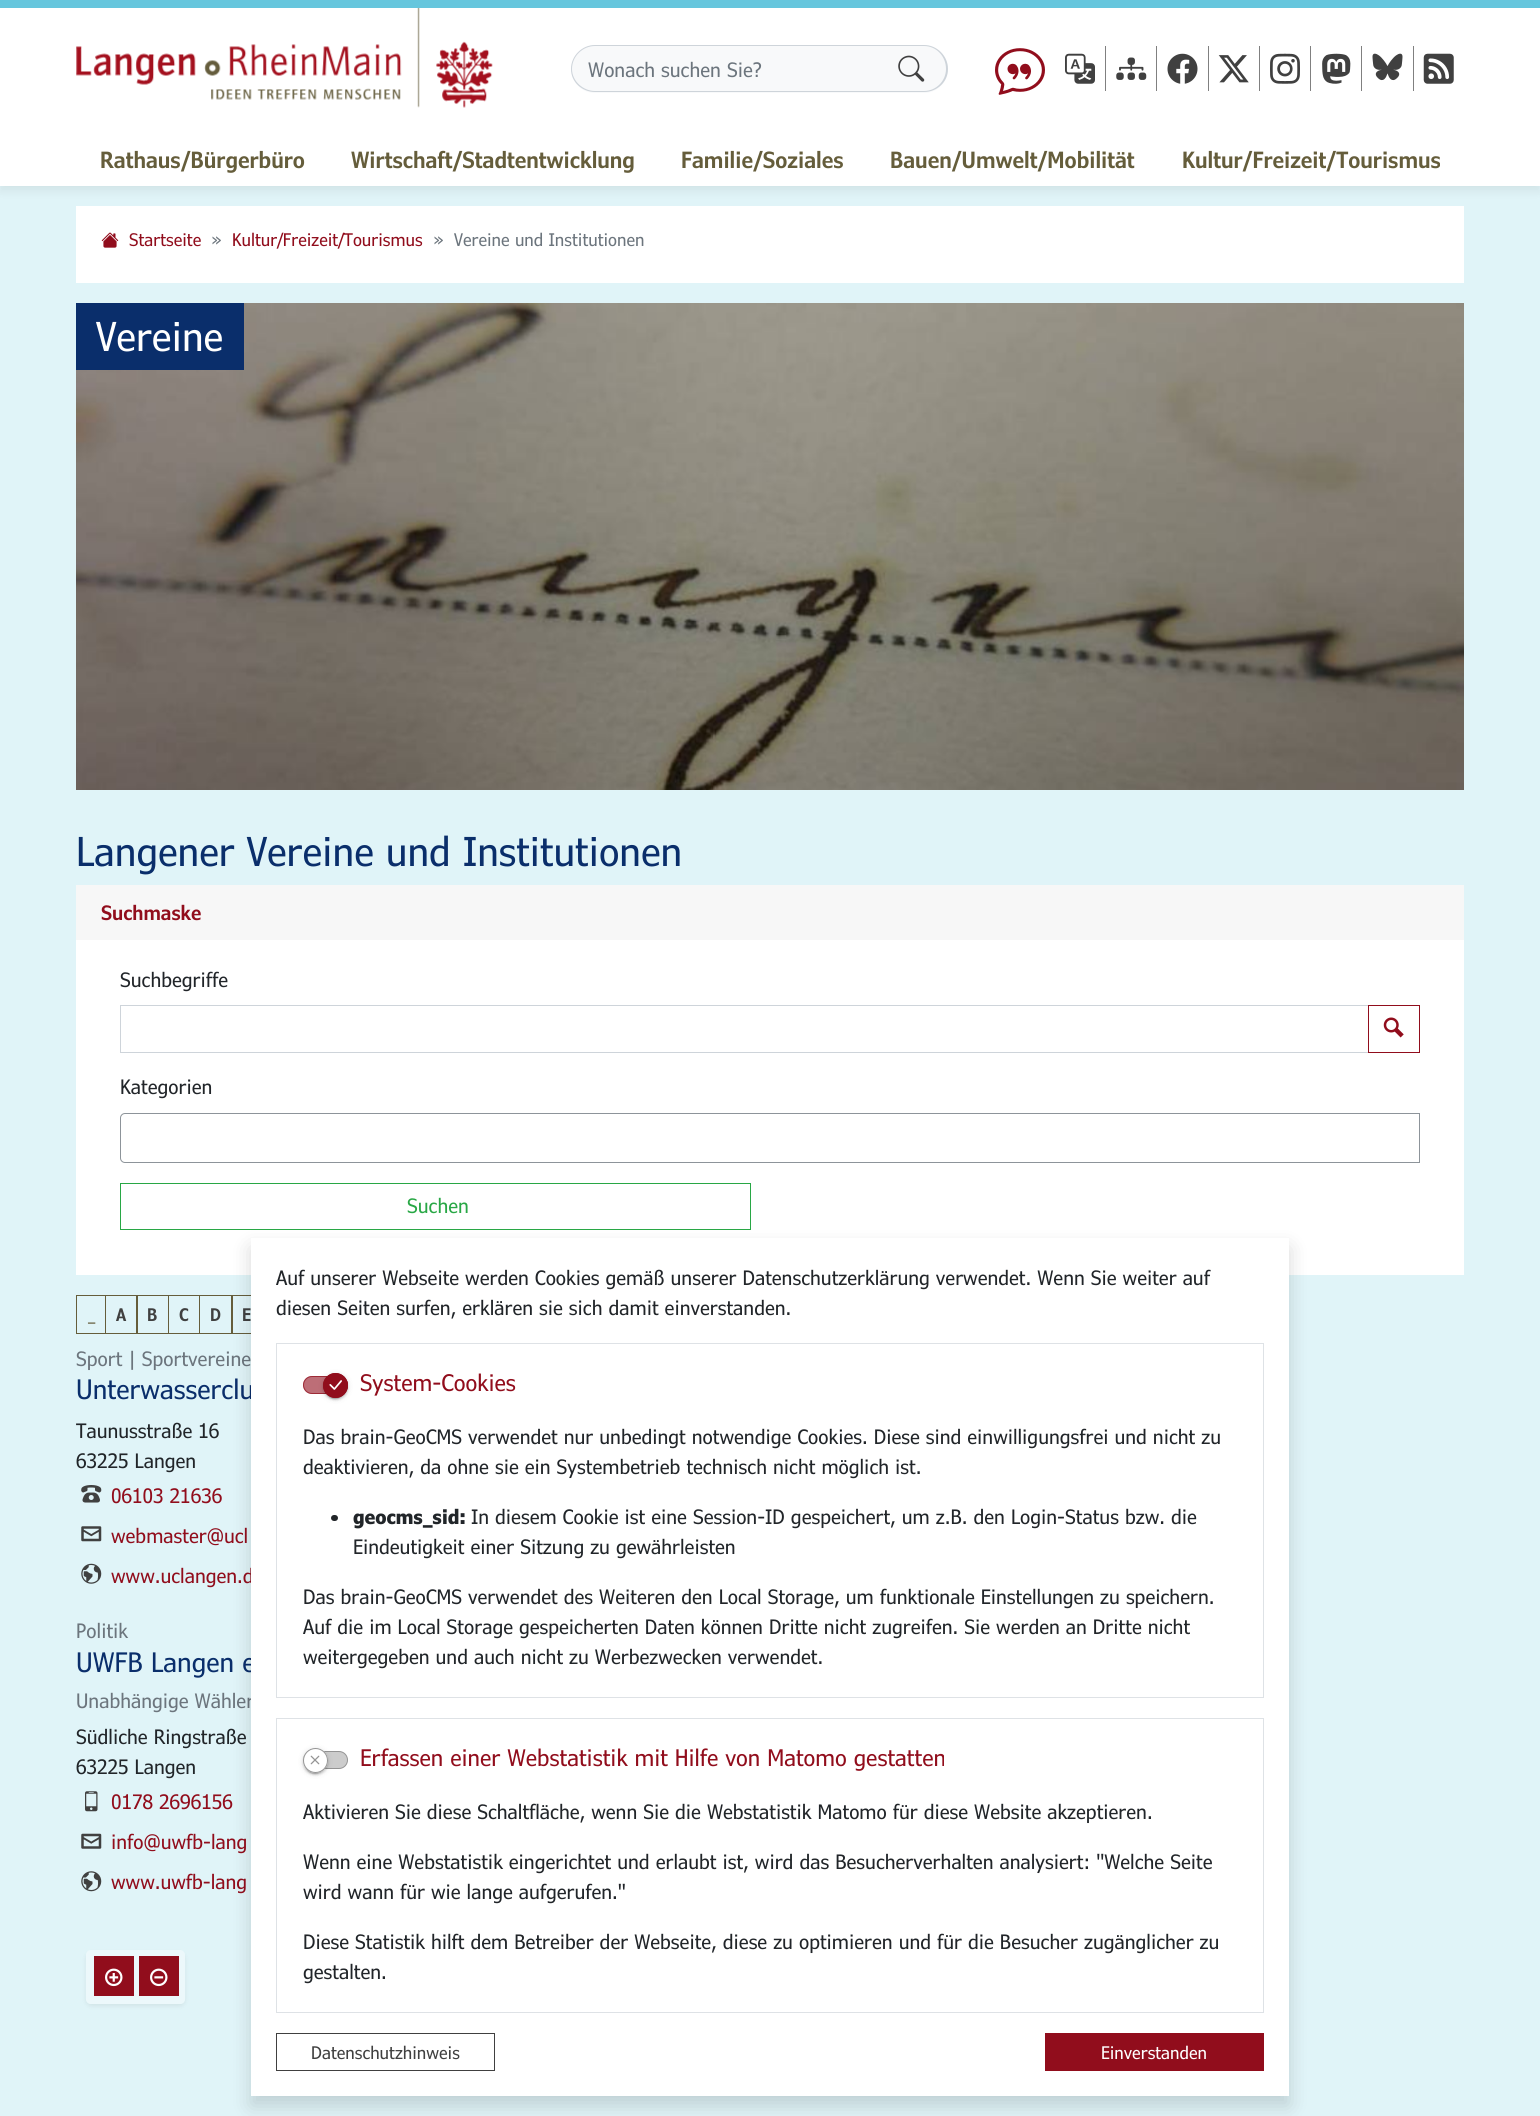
#include <cairo.h>
#include <math.h>
#include <stddef.h>


static void rgb(cairo_t *cr, int r, int g, int b)
{
	cairo_set_source_rgb(cr, r / 255.0, g / 255.0, b / 255.0);
}

static void face(cairo_t *cr, const char *family, double size, int italic, int bold)
{
	cairo_select_font_face(cr, family, italic ? CAIRO_FONT_SLANT_ITALIC : CAIRO_FONT_SLANT_NORMAL,
		bold ? CAIRO_FONT_WEIGHT_BOLD : CAIRO_FONT_WEIGHT_NORMAL);
	cairo_set_font_size(cr, size);
}

static void label(cairo_t *cr, double x, double y, const char *s)
{
	cairo_move_to(cr, x, y);
	cairo_show_text(cr, s);
}

static void rect(cairo_t *cr, double x, double y, double w, double h)
{
	cairo_rectangle(cr, x, y, w, h);
	cairo_fill(cr);
}

static void rrect(cairo_t *cr, double x, double y, double w, double h, double r)
{
	cairo_new_sub_path(cr);
	cairo_arc(cr, x + w - r, y + h - r, r, 0, M_PI / 2);
	cairo_arc(cr, x + r, y + h - r, r, M_PI / 2, M_PI);
	cairo_arc(cr, x + r, y + r, r, M_PI, 1.5 * M_PI);
	cairo_arc(cr, x + w - r, y + r, r, 1.5 * M_PI, 2 * M_PI);
	cairo_close_path(cr);
}

static void soft_shadow(cairo_t *cr, double x, double y, double w, double h, double r, double blur, double alpha)
{
	cairo_push_group_with_content(cr, CAIRO_CONTENT_ALPHA);
	cairo_set_operator(cr, CAIRO_OPERATOR_SOURCE);
	for (int i = 15; i >= -15 && fmin(w, h) + blur * i / 3 > 0; i -= 2) {
		double e = blur * i / 6;
		cairo_set_source_rgba(cr, 0, 0, 0, alpha * erfc((i - 1) / 8.5) / 2);
		rrect(cr, x - e, y - e, w + 2 * e, h + 2 * e, fmax(0, fmin(r + e + blur * .6, fmin(w, h) / 2 + e)));
		cairo_fill(cr);
	}
	cairo_pattern_t *soft = cairo_pop_group(cr);
	cairo_mask(cr, soft);
	cairo_pattern_destroy(soft);
}

static void image(cairo_t *cr, const char *path, double x, double y, double w, double h)
{
	cairo_surface_t *image = cairo_image_surface_create_from_png(path);
	cairo_save(cr);
	cairo_set_source_surface(cr, image, x, y);
	cairo_rectangle(cr, x, y, w, h);
	cairo_fill(cr);
	cairo_restore(cr);
	cairo_surface_destroy(image);
}

static void draw(cairo_t *cr) {
	rgb(cr, 224, 244, 248);
	cairo_paint(cr);
	rgb(cr, 255, 255, 255);
	rect(cr, 76, 206, 1388, 77);
	rgb(cr, 0, 0, 0);
	soft_shadow(cr, 0, 5, 1540, 186, 0, 5, 0.07);
	rgb(cr, 255, 255, 255);
	rect(cr, 0, 8, 1540, 178);
	rgb(cr, 102, 198, 221);
	rect(cr, 0, 0, 1540, 8);
	image(cr, "image0.png", 76, 8, 417, 100);
	rgb(cr, 248, 249, 250);
	rrect(cr, 571, 45, 377, 48, 24);
	cairo_fill(cr);
	rgb(cr, 206, 212, 218);
	cairo_set_fill_rule(cr, CAIRO_FILL_RULE_EVEN_ODD);
	cairo_new_path(cr);
	cairo_move_to(cr, 595, 45);
	cairo_line_to(cr, 888, 45);
	cairo_line_to(cr, 888, 92);
	cairo_line_to(cr, 595, 92);
	cairo_curve_to(cr, 582, 92, 571, 82, 571, 69);
	cairo_curve_to(cr, 571, 56, 582, 45, 595, 45);
	cairo_close_path(cr);
	cairo_move_to(cr, 595, 46);
	cairo_line_to(cr, 888, 46);
	cairo_line_to(cr, 888, 91);
	cairo_line_to(cr, 595, 91);
	cairo_curve_to(cr, 583, 91, 572, 81, 572, 69);
	cairo_curve_to(cr, 572, 56, 583, 46, 595, 46);
	cairo_close_path(cr);
	cairo_fill(cr);
	face(cr, "Verdana", 20, 0, 0);
	rgb(cr, 108, 117, 125);
	label(cr, 588, 77, "Wonach suchen Sie?");
	rgb(cr, 206, 212, 218);
	cairo_new_path(cr);
	cairo_move_to(cr, 886, 45);
	cairo_line_to(cr, 924, 45);
	cairo_curve_to(cr, 937, 45, 948, 56, 948, 69);
	cairo_curve_to(cr, 948, 82, 937, 92, 924, 92);
	cairo_line_to(cr, 886, 92);
	cairo_close_path(cr);
	cairo_move_to(cr, 886, 46);
	cairo_line_to(cr, 924, 46);
	cairo_curve_to(cr, 936, 46, 946, 56, 946, 69);
	cairo_curve_to(cr, 946, 81, 936, 91, 924, 91);
	cairo_line_to(cr, 886, 91);
	cairo_close_path(cr);
	cairo_fill(cr);
	image(cr, "image1.png", 898, 55, 27, 27);
	image(cr, "image2.png", 995, 48, 50, 47);
	rgb(cr, 128, 128, 128);
	rect(cr, 1105, 46, 1, 45);
	image(cr, "image3.png", 1065, 53, 30, 31);
	rect(cr, 1156, 46, 1, 45);
	image(cr, "image4.png", 1116, 57, 31, 23);
	rect(cr, 1208, 46, 1, 45);
	image(cr, "image5.png", 1167, 53, 31, 31);
	rect(cr, 1259, 46, 1, 45);
	image(cr, "image6.png", 1218, 55, 31, 28);
	rect(cr, 1310, 46, 1, 45);
	image(cr, "image7.png", 1270, 53, 30, 31);
	rect(cr, 1361, 46, 1, 45);
	image(cr, "image8.png", 1322, 53, 29, 31);
	rect(cr, 1413, 46, 1, 45);
	image(cr, "image9.png", 1372, 53, 31, 28);
	image(cr, "image10.png", 1423, 53, 31, 31);
	face(cr, "Verdana SemiBold", 22.5, 0, 0);
	rgb(cr, 101, 93, 59);
	label(cr, 100, 168, "Rathaus/Bürgerbüro");
	label(cr, 351, 168, "Wirtschaft/Stadtentwicklung");
	label(cr, 681, 168, "Familie/Soziales");
	label(cr, 890, 168, "Bauen/Umwelt/Mobilität");
	label(cr, 1182, 168, "Kultur/Freizeit/Tourismus");
	image(cr, "image11.png", 101, 232, 18, 16);
	face(cr, "Verdana", 17.5, 0, 0);
	rgb(cr, 145, 13, 28);
	label(cr, 129, 246, "Startseite");
	rgb(cr, 108, 117, 125);
	label(cr, 211, 246, "»");
	rgb(cr, 145, 13, 28);
	label(cr, 232, 246, "Kultur/Freizeit/Tourismus");
	rgb(cr, 108, 117, 125);
	label(cr, 433, 246, "»");
	label(cr, 454, 246, "Vereine und Institutionen");
	image(cr, "image12.png", 76, 303, 1388, 487);
	rgb(cr, 10, 46, 107);
	rect(cr, 76, 303, 168, 67);
	face(cr, "Verdana", 40, 0, 0);
	rgb(cr, 255, 255, 255);
	label(cr, 96, 351, "Vereine");
	rgb(cr, 10, 46, 107);
	label(cr, 76, 866, "Langener Vereine und Institutionen");
	rgb(cr, 255, 255, 255);
	rect(cr, 76, 940, 1388, 335);
	rgb(cr, 247, 247, 247);
	rect(cr, 76, 885, 1388, 55);
	face(cr, "Verdana SemiBold", 20, 0, 0);
	rgb(cr, 145, 13, 28);
	label(cr, 101, 920, "Suchmaske");
	face(cr, "Verdana", 20, 0, 0);
	rgb(cr, 33, 37, 41);
	label(cr, 120, 987, "Suchbegriffe");
	cairo_rectangle(cr, 120.5, 1005.5, 1248, 47);
	rgb(cr, 206, 212, 218);
	cairo_set_line_width(cr, 1);
	cairo_stroke(cr);
	cairo_rectangle(cr, 1368.5, 1005.5, 51, 47);
	rgb(cr, 145, 13, 28);
	cairo_stroke(cr);
	image(cr, "image13.png", 1383, 1017, 21, 21);
	rgb(cr, 33, 37, 41);
	label(cr, 120, 1094, "Kategorien");
	cairo_new_path(cr);
	cairo_move_to(cr, 125, 1113.5);
	cairo_line_to(cr, 1419.5, 1113.5);
	cairo_line_to(cr, 1419.5, 1162.5);
	cairo_line_to(cr, 125, 1162.5);
	cairo_curve_to(cr, 122.5, 1162.5, 120.5, 1160.5, 120.5, 1158);
	cairo_line_to(cr, 120.5, 1118);
	cairo_curve_to(cr, 120.5, 1115.5, 122.5, 1113.5, 125, 1113.5);
	cairo_close_path(cr);
	rgb(cr, 141, 148, 154);
	cairo_stroke(cr);
	cairo_rectangle(cr, 120.5, 1183.5, 630, 46);
	rgb(cr, 40, 167, 69);
	cairo_stroke(cr);
	label(cr, 407, 1213, "Suchen");
	cairo_rectangle(cr, 76.5, 1295.5, 29, 38);
	rgb(cr, 101, 93, 59);
	cairo_stroke(cr);
	cairo_rectangle(cr, 105.5, 1295.5, 32, 38);
	cairo_stroke(cr);
	face(cr, "Verdana SemiBold", 17.5, 0, 0);
	rgb(cr, 64, 64, 64);
	label(cr, 116, 1321, "A");
	cairo_rectangle(cr, 136.5, 1295.5, 32, 38);
	rgb(cr, 101, 93, 59);
	cairo_stroke(cr);
	rgb(cr, 64, 64, 64);
	label(cr, 147, 1321, "B");
	cairo_rectangle(cr, 168.5, 1295.5, 31, 38);
	rgb(cr, 101, 93, 59);
	cairo_stroke(cr);
	rgb(cr, 64, 64, 64);
	label(cr, 179, 1321, "C");
	cairo_rectangle(cr, 199.5, 1295.5, 33, 38);
	rgb(cr, 101, 93, 59);
	cairo_stroke(cr);
	rgb(cr, 64, 64, 64);
	label(cr, 210, 1321, "D");
	cairo_rectangle(cr, 231.5, 1295.5, 31, 38);
	rgb(cr, 101, 93, 59);
	cairo_stroke(cr);
	rgb(cr, 64, 64, 64);
	label(cr, 242, 1321, "E");
	face(cr, "Verdana", 17.5, 0, 0);
	rgb(cr, 101, 93, 59);
	label(cr, 88, 1321, "_");
	face(cr, "Verdana", 20, 0, 0);
	rgb(cr, 108, 117, 125);
	label(cr, 76, 1366, "Sport | Sportvereine");
	face(cr, "Verdana", 27, 0, 0);
	rgb(cr, 10, 46, 107);
	label(cr, 76, 1399, "Unterwasserclu");
	face(cr, "Verdana", 20, 0, 0);
	rgb(cr, 33, 37, 41);
	label(cr, 76, 1438, "Taunusstraße 16");
	label(cr, 76, 1468, "63225 Langen");
	image(cr, "image14.png", 81, 1485, 21, 18);
	rgb(cr, 145, 13, 28);
	label(cr, 111, 1503, "06103 21636");
	image(cr, "image15.png", 81, 1526, 21, 16);
	label(cr, 111, 1543, "webmaster@ucl");
	image(cr, "image16.png", 81, 1563, 21, 21);
	label(cr, 111, 1583, "www.uclangen.d");
	rgb(cr, 108, 117, 125);
	label(cr, 76, 1638, "Politik");
	face(cr, "Verdana", 27, 0, 0);
	rgb(cr, 10, 46, 107);
	label(cr, 76, 1672, "UWFB Langen e");
	face(cr, "Verdana", 20, 0, 0);
	rgb(cr, 108, 117, 125);
	label(cr, 76, 1708, "Unabhängige Wähler");
	rgb(cr, 33, 37, 41);
	label(cr, 76, 1744, "Südliche Ringstraße");
	label(cr, 76, 1774, "63225 Langen");
	image(cr, "image17.png", 85, 1791, 13, 21);
	rgb(cr, 145, 13, 28);
	label(cr, 111, 1809, "0178 2696156");
	image(cr, "image18.png", 81, 1833, 21, 16);
	label(cr, 111, 1849, "info@uwfb-lang");
	image(cr, "image19.png", 81, 1871, 21, 21);
	label(cr, 111, 1889, "www.uwfb-lang");
	cairo_save(cr);
	cairo_new_path(cr);
	cairo_move_to(cr, 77, 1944);
	cairo_line_to(cr, 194, 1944);
	cairo_line_to(cr, 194, 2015);
	cairo_line_to(cr, 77, 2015);
	cairo_close_path(cr);
	cairo_move_to(cr, 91, 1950);
	cairo_line_to(cr, 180, 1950);
	cairo_curve_to(cr, 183, 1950, 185, 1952, 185, 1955);
	cairo_line_to(cr, 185, 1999);
	cairo_curve_to(cr, 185, 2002, 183, 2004, 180, 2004);
	cairo_line_to(cr, 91, 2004);
	cairo_curve_to(cr, 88, 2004, 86, 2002, 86, 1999);
	cairo_line_to(cr, 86, 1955);
	cairo_curve_to(cr, 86, 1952, 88, 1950, 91, 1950);
	cairo_close_path(cr);
	cairo_clip(cr);
	rgb(cr, 0, 0, 0);
	soft_shadow(cr, 86, 1953, 99, 53, 5, 2.5, 0.07);
	cairo_restore(cr);
	cairo_set_source_rgba(cr, 1, 1, 1, 0.4);
	rrect(cr, 86, 1950, 99, 54, 5);
	cairo_fill(cr);
	rgb(cr, 145, 13, 28);
	rect(cr, 94, 1956, 40, 40);
	image(cr, "image20.png", 105, 1968, 18, 19);
	rect(cr, 139, 1956, 40, 40);
	image(cr, "image21.png", 150, 1968, 18, 19);
	rgb(cr, 0, 0, 0);
	soft_shadow(cr, 251, 1248, 1038, 858, 0, 10, 0.15);
	rgb(cr, 255, 255, 255);
	rect(cr, 251, 1238, 1038, 858);
	rgb(cr, 33, 37, 41);
	label(cr, 276, 1285, "Auf unserer Webseite werden Cookies gemäß unserer Datenschutzerklärung verwendet. Wenn Sie weiter auf");
	label(cr, 276, 1315, "diesen Seiten surfen, erklären sie sich damit einverstanden.");
	cairo_rectangle(cr, 276.5, 1343.5, 987, 354);
	rgb(cr, 222, 226, 230);
	cairo_stroke(cr);
	rgb(cr, 189, 110, 119);
	rrect(cr, 303, 1376, 45, 18, 9);
	cairo_fill(cr);
	rrect(cr, 303.5, 1376.5, 44, 17, 8.5);
	cairo_set_source_rgba(cr, 0.569, 0.051, 0.11, 0.7);
	cairo_stroke(cr);
	rgb(cr, 0, 0, 0);
	soft_shadow(cr, 323, 1374, 25, 25, 12.5, 3, 0.12);
	soft_shadow(cr, 323, 1375, 25, 25, 12.5, 1, 0.14);
	soft_shadow(cr, 325, 1379, 20, 20, 10, 0.5, 0.2);
	rgb(cr, 145, 13, 28);
	cairo_arc(cr, 335.5, 1385.5, 12.5, 0, 2 * M_PI);
	cairo_fill(cr);
	image(cr, "image22.png", 329, 1380, 13, 10);
	cairo_arc(cr, 335.5, 1385.5, 12, 0, 2 * M_PI);
	cairo_stroke(cr);
	face(cr, "Verdana", 23, 0, 0);
	label(cr, 360, 1391, "System-Cookies");
	face(cr, "Verdana", 20, 0, 0);
	rgb(cr, 33, 37, 41);
	label(cr, 303, 1444, "Das brain-GeoCMS verwendet nur unbedingt notwendige Cookies. Diese sind einwilligungsfrei und nicht zu");
	label(cr, 303, 1474, "deaktivieren, da ohne sie ein Systembetrieb technisch nicht möglich ist.");
	rrect(cr, 331, 1515, 7, 6, 3);
	cairo_fill(cr);
	face(cr, "Verdana", 20, 0, 1);
	label(cr, 353, 1524, "geocms_sid:");
	face(cr, "Verdana", 20, 0, 0);
	label(cr, 471, 1524, "In diesem Cookie ist eine Session-ID gespeichert, um z.B. den Login-Status bzw. die");
	label(cr, 353, 1554, "Eindeutigkeit einer Sitzung zu gewährleisten");
	label(cr, 303, 1604, "Das brain-GeoCMS verwendet des Weiteren den Local Storage, um funktionale Einstellungen zu speichern.");
	label(cr, 303, 1634, "Auf die im Local Storage gespeicherten Daten können Dritte nicht zugreifen. Sie werden an Dritte nicht");
	label(cr, 303, 1664, "weitergegeben und auch nicht zu Werbezwecken verwendet.");
	cairo_rectangle(cr, 276.5, 1718.5, 987, 294);
	rgb(cr, 222, 226, 230);
	cairo_stroke(cr);
	rgb(cr, 204, 204, 204);
	rrect(cr, 303.5, 1751.5, 44, 17, 8.5);
	cairo_fill_preserve(cr);
	rgb(cr, 148, 148, 148);
	cairo_stroke(cr);
	rgb(cr, 0, 0, 0);
	soft_shadow(cr, 303, 1749, 25, 25, 12.5, 3, 0.12);
	soft_shadow(cr, 303, 1750, 25, 25, 12.5, 1, 0.14);
	soft_shadow(cr, 305, 1754, 20, 20, 10, 0.5, 0.2);
	rgb(cr, 255, 255, 255);
	cairo_arc(cr, 315.5, 1760.5, 12.5, 0, 2 * M_PI);
	cairo_fill(cr);
	image(cr, "image23.png", 310, 1755, 10, 10);
	cairo_arc(cr, 315.5, 1760.5, 12, 0, 2 * M_PI);
	rgb(cr, 148, 148, 148);
	cairo_stroke(cr);
	face(cr, "Verdana", 23, 0, 0);
	rgb(cr, 145, 13, 28);
	label(cr, 360, 1766, "Erfassen einer Webstatistik mit Hilfe von Matomo gestatten");
	face(cr, "Verdana", 20, 0, 0);
	rgb(cr, 33, 37, 41);
	label(cr, 303, 1819, "Aktivieren Sie diese Schaltfläche, wenn Sie die Webstatistik Matomo für diese Website akzeptieren.");
	label(cr, 303, 1869, "Wenn eine Webstatistik eingerichtet und erlaubt ist, wird das Besucherverhalten analysiert: \"Welche Seite");
	label(cr, 303, 1899, "wird wann für wie lange aufgerufen.\"");
	label(cr, 303, 1949, "Diese Statistik hilft dem Betreiber der Webseite, diese zu optimieren und für die Besucher zugänglicher zu");
	label(cr, 303, 1979, "gestalten.");
	cairo_rectangle(cr, 276.5, 2033.5, 218, 37);
	rgb(cr, 64, 64, 64);
	cairo_stroke(cr);
	face(cr, "Verdana", 17.5, 0, 0);
	label(cr, 311, 2059, "Datenschutzhinweis");
	rgb(cr, 145, 13, 28);
	rect(cr, 1045, 2033, 219, 38);
	rgb(cr, 255, 255, 255);
	label(cr, 1101, 2059, "Einverstanden");
}

int main(void) {
	cairo_surface_t *surface = cairo_image_surface_create(CAIRO_FORMAT_RGB24, 1540, 2116);
	cairo_t *cr = cairo_create(surface);
	cairo_font_options_t *options = cairo_font_options_create();
	cairo_font_options_set_hint_metrics(options, CAIRO_HINT_METRICS_OFF);
	cairo_font_options_set_hint_style(options, CAIRO_HINT_STYLE_NONE);
	cairo_set_font_options(cr, options);
	cairo_set_miter_limit(cr, 4);
	draw(cr);
	cairo_surface_write_to_png(surface, "render.png");
	cairo_font_options_destroy(options);
	cairo_destroy(cr);
	cairo_surface_destroy(surface);
	return 0;
}
